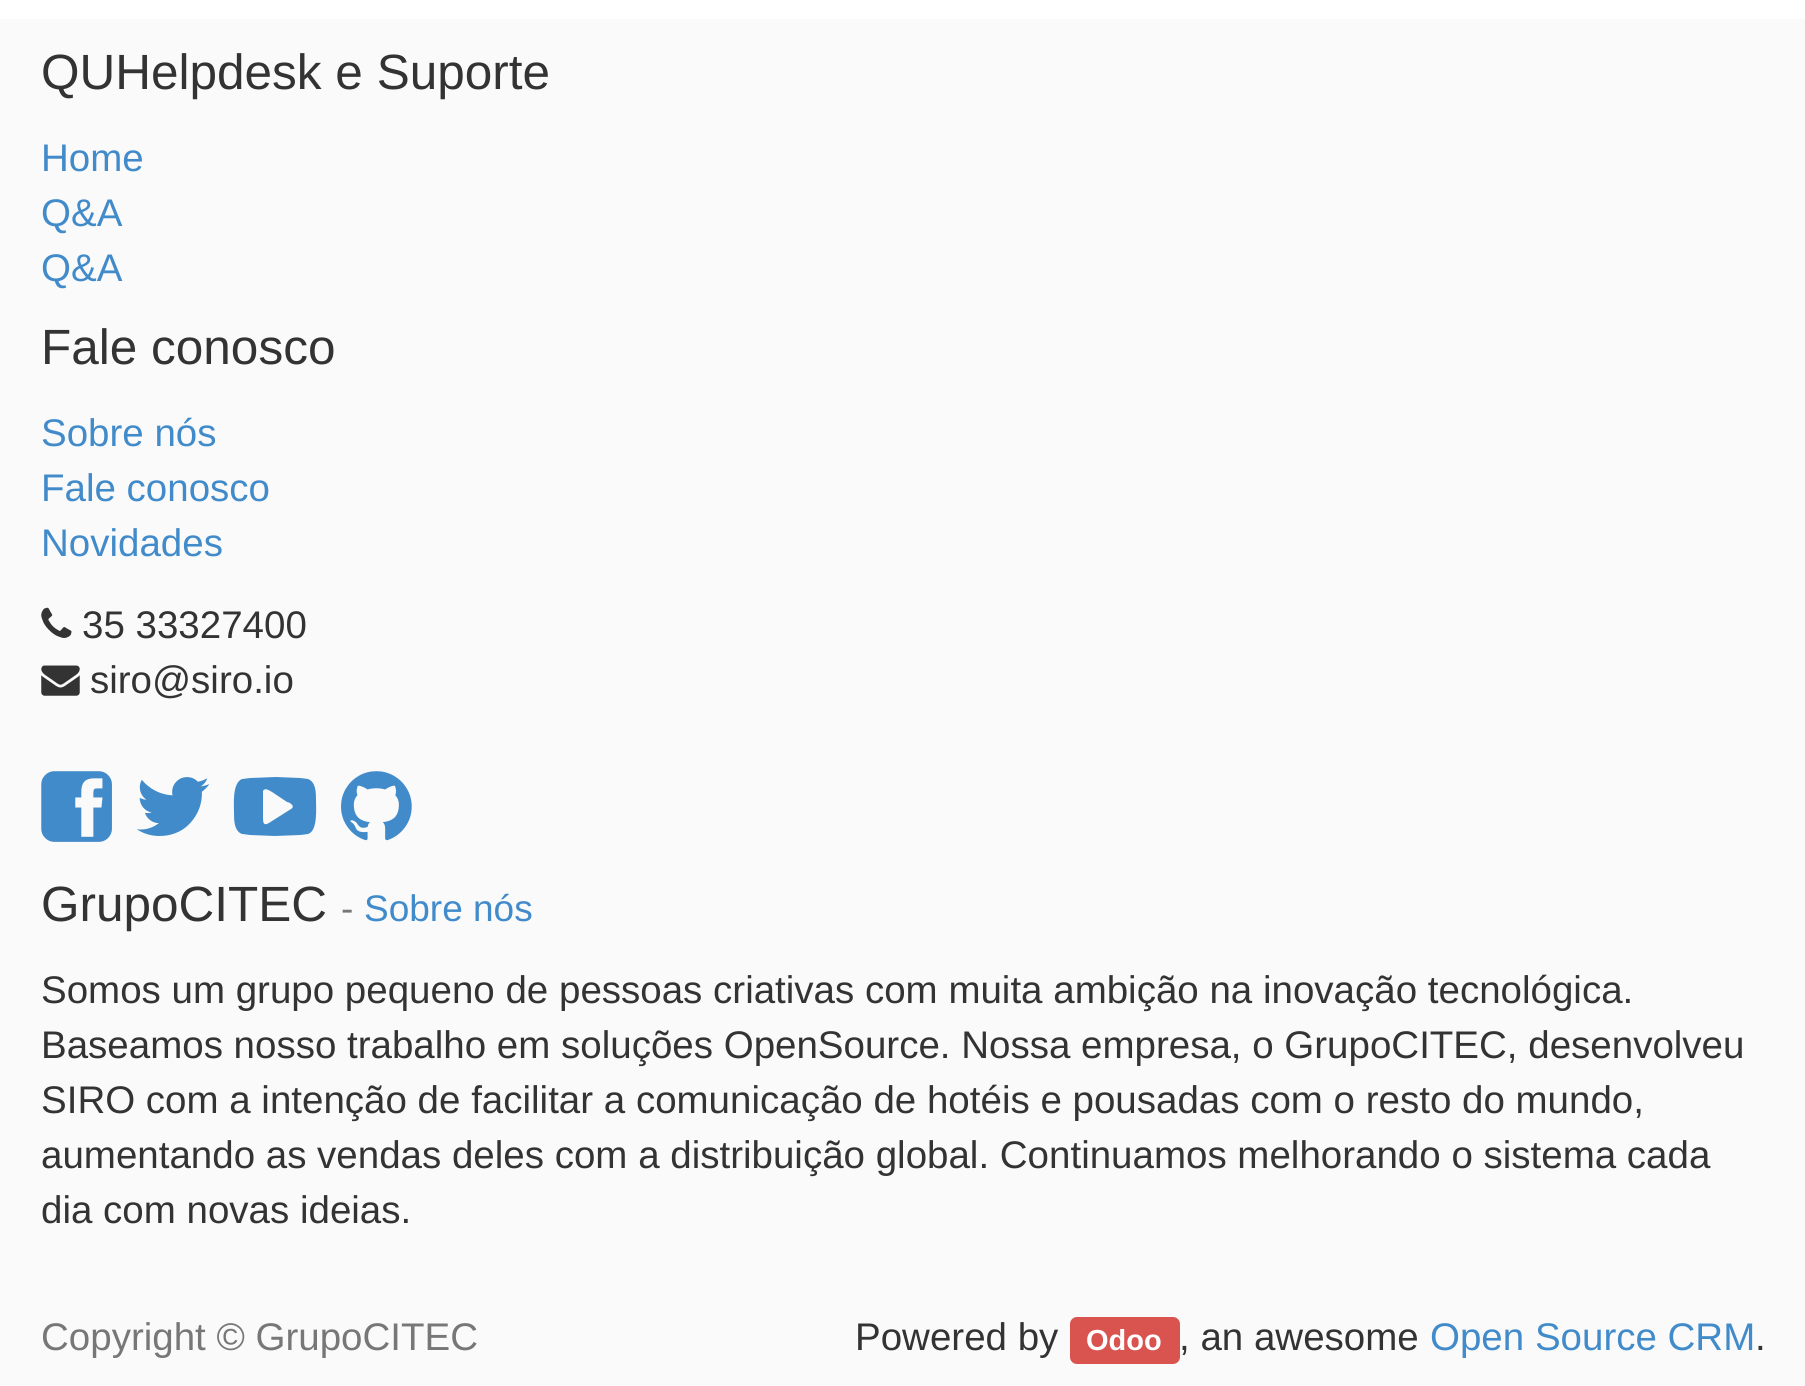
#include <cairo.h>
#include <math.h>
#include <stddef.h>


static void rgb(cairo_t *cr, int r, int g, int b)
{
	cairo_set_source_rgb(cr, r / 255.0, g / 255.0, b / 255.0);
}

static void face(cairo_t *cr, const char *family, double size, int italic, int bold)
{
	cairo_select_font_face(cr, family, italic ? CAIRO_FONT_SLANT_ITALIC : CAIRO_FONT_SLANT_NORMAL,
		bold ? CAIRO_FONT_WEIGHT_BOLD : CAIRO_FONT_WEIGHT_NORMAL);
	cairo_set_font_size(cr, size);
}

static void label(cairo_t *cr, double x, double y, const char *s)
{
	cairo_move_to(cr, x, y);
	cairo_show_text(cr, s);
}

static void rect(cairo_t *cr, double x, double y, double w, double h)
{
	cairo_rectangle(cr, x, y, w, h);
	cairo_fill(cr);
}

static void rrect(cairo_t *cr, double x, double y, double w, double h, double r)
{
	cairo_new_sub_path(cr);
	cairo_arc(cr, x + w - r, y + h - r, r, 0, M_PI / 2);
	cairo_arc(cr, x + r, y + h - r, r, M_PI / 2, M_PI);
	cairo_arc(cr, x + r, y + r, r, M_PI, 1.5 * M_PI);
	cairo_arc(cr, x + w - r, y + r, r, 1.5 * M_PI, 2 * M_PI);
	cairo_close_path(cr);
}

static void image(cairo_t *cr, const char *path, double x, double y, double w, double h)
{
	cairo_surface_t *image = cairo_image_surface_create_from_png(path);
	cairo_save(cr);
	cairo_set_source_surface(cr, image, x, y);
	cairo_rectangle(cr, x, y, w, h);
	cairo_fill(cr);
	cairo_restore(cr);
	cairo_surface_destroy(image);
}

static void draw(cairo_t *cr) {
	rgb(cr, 255, 255, 255);
	cairo_paint(cr);
	rgb(cr, 250, 250, 250);
	rect(cr, 0, 19, 1805, 1367);
	face(cr, "Liberation Sans", 49.5, 0, 0);
	rgb(cr, 51, 51, 51);
	label(cr, 41, 89, "QUHelpdesk e Suporte");
	face(cr, "Liberation Sans", 38.5, 0, 0);
	rgb(cr, 66, 139, 202);
	label(cr, 41, 171, "Home");
	label(cr, 41, 226, "Q&A");
	label(cr, 41, 281, "Q&A");
	face(cr, "Liberation Sans", 49.5, 0, 0);
	rgb(cr, 51, 51, 51);
	label(cr, 41, 364, "Fale conosco");
	face(cr, "Liberation Sans", 38.5, 0, 0);
	rgb(cr, 66, 139, 202);
	label(cr, 41, 446, "Sobre nós");
	label(cr, 41, 501, "Fale conosco");
	label(cr, 41, 556, "Novidades");
	image(cr, "image0.png", 41, 607, 31, 31);
	rgb(cr, 51, 51, 51);
	label(cr, 82, 638, "35 33327400");
	image(cr, "image1.png", 41, 665, 39, 31);
	label(cr, 90, 693, "siro@siro.io");
	image(cr, "image2.png", 41, 771, 71, 71);
	image(cr, "image3.png", 137, 777, 73, 59);
	rgb(cr, 66, 139, 202);
	cairo_new_path(cr);
	cairo_move_to(cr, 291, 809);
	cairo_curve_to(cr, 296, 806, 289, 802, 287, 802);
	cairo_line_to(cr, 272, 792);
	cairo_curve_to(cr, 270, 791, 265, 787, 263, 791);
	cairo_line_to(cr, 263, 811);
	cairo_curve_to(cr, 263, 823, 262, 828, 272, 821);
	cairo_close_path(cr);
	cairo_move_to(cr, 316, 800);
	cairo_curve_to(cr, 316, 808, 318, 831, 308, 834);
	cairo_line_to(cr, 300, 835);
	cairo_line_to(cr, 275, 836);
	cairo_line_to(cr, 250, 835);
	cairo_line_to(cr, 242, 834);
	cairo_curve_to(cr, 234, 831, 234, 820, 234, 813);
	cairo_curve_to(cr, 234, 805, 232, 783, 242, 779);
	cairo_line_to(cr, 250, 778);
	cairo_line_to(cr, 275, 777);
	cairo_line_to(cr, 300, 778);
	cairo_line_to(cr, 308, 779);
	cairo_curve_to(cr, 316, 782, 316, 793, 316, 800);
	cairo_close_path(cr);
	cairo_fill(cr);
	image(cr, "image4.png", 341, 771, 71, 70);
	face(cr, "Liberation Sans", 49.5, 0, 0);
	rgb(cr, 51, 51, 51);
	label(cr, 41, 921, "GrupoCITEC");
	face(cr, "Liberation Sans", 37, 0, 0);
	rgb(cr, 119, 119, 119);
	label(cr, 341, 921, "-");
	rgb(cr, 66, 139, 202);
	label(cr, 364, 921, "Sobre nós");
	face(cr, "Liberation Sans", 38.5, 0, 0);
	rgb(cr, 51, 51, 51);
	label(cr, 41, 1003, "Somos um grupo pequeno de pessoas criativas com muita ambição na inovação tecnológica.");
	label(cr, 41, 1058, "Baseamos nosso trabalho em soluções OpenSource. Nossa empresa, o GrupoCITEC, desenvolveu");
	label(cr, 41, 1113, "SIRO com a intenção de facilitar a comunicação de hotéis e pousadas com o resto do mundo,");
	label(cr, 41, 1168, "aumentando as vendas deles com a distribuição global. Continuamos melhorando o sistema cada");
	label(cr, 41, 1223, "dia com novas ideias.");
	rgb(cr, 119, 119, 119);
	label(cr, 41, 1350, "Copyright © GrupoCITEC");
	rgb(cr, 51, 51, 51);
	label(cr, 855, 1350, "Powered by");
	rgb(cr, 217, 83, 79);
	rrect(cr, 1070, 1317, 110, 47, 7);
	cairo_fill(cr);
	face(cr, "Liberation Sans", 29, 0, 1);
	rgb(cr, 255, 255, 255);
	label(cr, 1086, 1350, "Odoo");
	face(cr, "Liberation Sans", 38.5, 0, 0);
	rgb(cr, 51, 51, 51);
	label(cr, 1179, 1350, ", an awesome");
	rgb(cr, 66, 139, 202);
	label(cr, 1430, 1350, "Open Source CRM");
	rgb(cr, 51, 51, 51);
	label(cr, 1755, 1350, ".");
}

int main(void) {
	cairo_surface_t *surface = cairo_image_surface_create(CAIRO_FORMAT_RGB24, 1805, 1386);
	cairo_t *cr = cairo_create(surface);
	cairo_font_options_t *options = cairo_font_options_create();
	cairo_font_options_set_hint_metrics(options, CAIRO_HINT_METRICS_OFF);
	cairo_font_options_set_hint_style(options, CAIRO_HINT_STYLE_NONE);
	cairo_set_font_options(cr, options);
	cairo_set_miter_limit(cr, 4);
	draw(cr);
	cairo_surface_write_to_png(surface, "render.png");
	cairo_font_options_destroy(options);
	cairo_destroy(cr);
	cairo_surface_destroy(surface);
	return 0;
}
